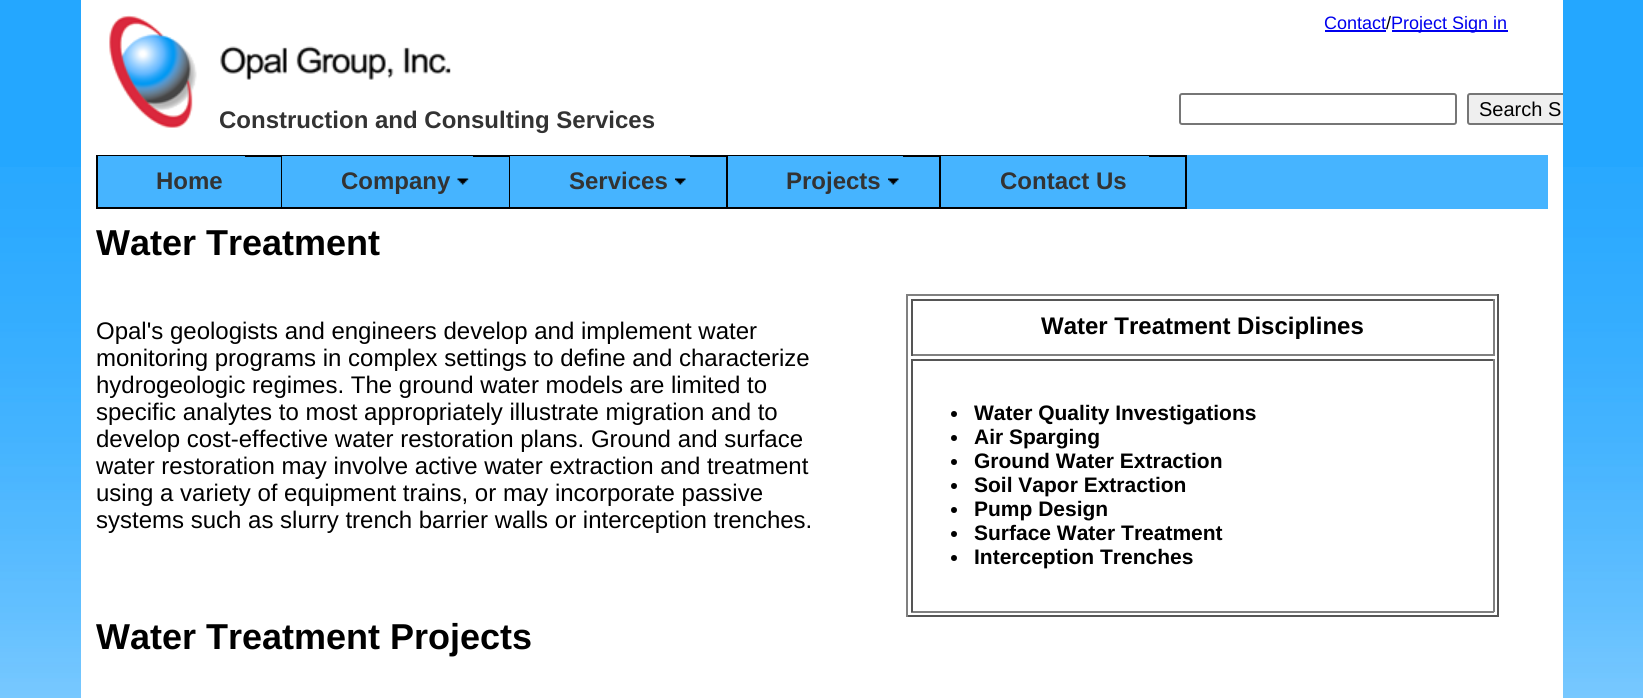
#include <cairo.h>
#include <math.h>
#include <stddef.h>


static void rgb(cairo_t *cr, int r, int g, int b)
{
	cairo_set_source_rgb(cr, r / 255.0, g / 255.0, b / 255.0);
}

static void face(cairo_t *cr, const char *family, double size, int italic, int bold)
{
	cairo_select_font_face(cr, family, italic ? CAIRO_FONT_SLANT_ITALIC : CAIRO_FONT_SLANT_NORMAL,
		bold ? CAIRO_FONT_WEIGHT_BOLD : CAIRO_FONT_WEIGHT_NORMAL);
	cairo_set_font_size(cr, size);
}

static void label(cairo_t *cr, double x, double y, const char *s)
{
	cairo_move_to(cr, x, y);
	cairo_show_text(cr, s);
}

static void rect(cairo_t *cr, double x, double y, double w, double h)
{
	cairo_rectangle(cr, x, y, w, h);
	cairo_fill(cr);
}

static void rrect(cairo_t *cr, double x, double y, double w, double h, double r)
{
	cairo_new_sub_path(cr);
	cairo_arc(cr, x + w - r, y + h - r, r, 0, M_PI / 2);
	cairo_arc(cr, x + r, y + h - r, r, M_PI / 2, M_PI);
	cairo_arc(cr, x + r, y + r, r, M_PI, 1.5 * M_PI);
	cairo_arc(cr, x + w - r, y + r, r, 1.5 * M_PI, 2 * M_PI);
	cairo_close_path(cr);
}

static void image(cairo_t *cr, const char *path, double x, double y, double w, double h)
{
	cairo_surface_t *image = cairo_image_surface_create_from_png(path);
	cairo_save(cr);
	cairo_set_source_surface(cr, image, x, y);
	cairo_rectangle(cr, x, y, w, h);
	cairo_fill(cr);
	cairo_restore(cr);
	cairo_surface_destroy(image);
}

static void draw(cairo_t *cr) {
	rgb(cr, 36, 167, 255);
	cairo_paint(cr);
	image(cr, "image0.png", 0, 167, 1643, 531);
	rgb(cr, 255, 255, 255);
	rect(cr, 81, 0, 1482, 698);
	image(cr, "image1.png", 109, 15, 342, 113);
	face(cr, "Liberation Sans", 18, 0, 0);
	rgb(cr, 0, 0, 238);
	label(cr, 1324, 29, "Contact");
	rect(cr, 1325, 30, 61, 2);
	rgb(cr, 0, 0, 0);
	label(cr, 1386, 29, "/");
	rgb(cr, 0, 0, 238);
	rect(cr, 1392, 30, 116, 2);
	label(cr, 1391, 29, "Project Sign in");
	face(cr, "Liberation Sans", 24, 0, 1);
	rgb(cr, 51, 51, 51);
	label(cr, 219, 128, "Construction and Consulting Services");
	rrect(cr, 1180, 94, 276, 30, 2);
	rgb(cr, 118, 118, 118);
	cairo_stroke(cr);
	rgb(cr, 239, 239, 239);
	cairo_new_path(cr);
	cairo_move_to(cr, 1470, 93);
	cairo_line_to(cr, 1563, 93);
	cairo_line_to(cr, 1563, 125);
	cairo_line_to(cr, 1470, 125);
	cairo_curve_to(cr, 1468.5, 125, 1467, 123.5, 1467, 122);
	cairo_line_to(cr, 1467, 96);
	cairo_curve_to(cr, 1467, 94.5, 1468.5, 93, 1470, 93);
	cairo_close_path(cr);
	cairo_fill(cr);
	cairo_save(cr);
	cairo_rectangle(cr, 81, 0, 1482, 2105);
	cairo_clip(cr);
	rrect(cr, 1468, 94, 126, 30, 2);
	rgb(cr, 118, 118, 118);
	cairo_stroke(cr);
	cairo_restore(cr);
	face(cr, "Liberation Sans", 20, 0, 0);
	rgb(cr, 0, 0, 0);
	label(cr, 1479, 116, "Search S");
	rgb(cr, 70, 180, 255);
	rect(cr, 245, 155, 1303, 54);
	rgb(cr, 0, 0, 0);
	rect(cr, 96, 155, 843, 2);
	rect(cr, 96, 207, 843, 2);
	rect(cr, 96, 155, 2, 54);
	rgb(cr, 70, 180, 255);
	rect(cr, 98, 156, 147, 51);
	face(cr, "Liberation Sans", 24, 0, 1);
	rgb(cr, 51, 51, 51);
	label(cr, 156, 189, "Home");
	rgb(cr, 0, 0, 0);
	rect(cr, 281, 155, 2, 54);
	rgb(cr, 70, 180, 255);
	rect(cr, 282, 156, 191, 51);
	image(cr, "image2.png", 457, 178, 12, 7);
	rgb(cr, 51, 51, 51);
	label(cr, 341, 189, "Company");
	rgb(cr, 0, 0, 0);
	rect(cr, 509, 155, 2, 54);
	rgb(cr, 70, 180, 255);
	rect(cr, 510, 156, 180, 51);
	image(cr, "image3.png", 675, 178, 11, 7);
	rgb(cr, 51, 51, 51);
	label(cr, 569, 189, "Services");
	rgb(cr, 0, 0, 0);
	rect(cr, 726, 155, 2, 54);
	rgb(cr, 70, 180, 255);
	rect(cr, 728, 156, 175, 1);
	image(cr, "image3.png", 888, 178, 11, 7);
	rgb(cr, 51, 51, 51);
	label(cr, 786, 189, "Projects");
	cairo_rectangle(cr, 940, 156, 246, 52);
	rgb(cr, 0, 0, 0);
	cairo_stroke(cr);
	rgb(cr, 70, 180, 255);
	rect(cr, 941, 156, 208, 1);
	rgb(cr, 51, 51, 51);
	label(cr, 1000, 189, "Contact Us");
	face(cr, "Liberation Sans", 36, 0, 1);
	rgb(cr, 0, 0, 0);
	label(cr, 96, 255, "Water Treatment");
	face(cr, "Liberation Sans", 24, 0, 0);
	label(cr, 96, 339, "Opal's geologists and engineers develop and implement water");
	label(cr, 96, 366, "monitoring programs in complex settings to define and characterize");
	label(cr, 96, 393, "hydrogeologic regimes. The ground water models are limited to");
	label(cr, 96, 420, "specific analytes to most appropriately illustrate migration and to");
	label(cr, 96, 447, "develop cost-effective water restoration plans. Ground and surface");
	label(cr, 96, 474, "water restoration may involve active water extraction and treatment");
	label(cr, 96, 501, "using a variety of equipment trains, or may incorporate passive");
	label(cr, 96, 528, "systems such as slurry trench barrier walls or interception trenches.");
	rgb(cr, 128, 128, 128);
	rect(cr, 906, 294, 593, 2);
	rgb(cr, 85, 85, 85);
	rect(cr, 1497, 294, 2, 323);
	rect(cr, 906, 615, 593, 2);
	rgb(cr, 128, 128, 128);
	rect(cr, 906, 294, 2, 323);
	rgb(cr, 85, 85, 85);
	rect(cr, 911, 299, 583, 2);
	rgb(cr, 128, 128, 128);
	rect(cr, 1493, 299, 2, 57);
	rect(cr, 911, 354, 583, 2);
	rgb(cr, 85, 85, 85);
	rect(cr, 911, 299, 2, 57);
	face(cr, "Liberation Sans", 24, 0, 1);
	rgb(cr, 0, 0, 0);
	label(cr, 1041, 334, "Water Treatment Disciplines");
	rgb(cr, 85, 85, 85);
	rect(cr, 911, 359, 583, 2);
	rgb(cr, 128, 128, 128);
	rect(cr, 1493, 359, 2, 253);
	rect(cr, 911, 611, 583, 2);
	rgb(cr, 85, 85, 85);
	rect(cr, 911, 359, 2, 253);
	rgb(cr, 0, 0, 0);
	cairo_new_path(cr);
	cairo_arc(cr, 954, 414, 3, 0, 2 * M_PI);
	cairo_fill(cr);
	face(cr, "Liberation Sans", 21, 0, 1);
	label(cr, 974, 420, "Water Quality Investigations");
	cairo_new_path(cr);
	cairo_arc(cr, 954, 438, 3, 0, 2 * M_PI);
	cairo_fill(cr);
	label(cr, 974, 444, "Air Sparging");
	cairo_new_path(cr);
	cairo_arc(cr, 954, 462, 3, 0, 2 * M_PI);
	cairo_fill(cr);
	label(cr, 974, 468, "Ground Water Extraction");
	cairo_new_path(cr);
	cairo_arc(cr, 954, 486, 3, 0, 2 * M_PI);
	cairo_fill(cr);
	label(cr, 974, 492, "Soil Vapor Extraction");
	cairo_new_path(cr);
	cairo_arc(cr, 954, 510, 3, 0, 2 * M_PI);
	cairo_fill(cr);
	label(cr, 974, 516, "Pump Design");
	cairo_new_path(cr);
	cairo_arc(cr, 954, 534, 3, 0, 2 * M_PI);
	cairo_fill(cr);
	label(cr, 974, 540, "Surface Water Treatment");
	cairo_new_path(cr);
	cairo_arc(cr, 954, 558, 3, 0, 2 * M_PI);
	cairo_fill(cr);
	label(cr, 974, 564, "Interception Trenches");
	face(cr, "Liberation Sans", 36, 0, 1);
	label(cr, 96, 649, "Water Treatment Projects");
}

int main(void) {
	cairo_surface_t *surface = cairo_image_surface_create(CAIRO_FORMAT_RGB24, 1643, 698);
	cairo_t *cr = cairo_create(surface);
	cairo_font_options_t *options = cairo_font_options_create();
	cairo_font_options_set_hint_metrics(options, CAIRO_HINT_METRICS_OFF);
	cairo_font_options_set_hint_style(options, CAIRO_HINT_STYLE_NONE);
	cairo_set_font_options(cr, options);
	cairo_set_miter_limit(cr, 4);
	draw(cr);
	cairo_surface_write_to_png(surface, "render.png");
	cairo_font_options_destroy(options);
	cairo_destroy(cr);
	cairo_surface_destroy(surface);
	return 0;
}
